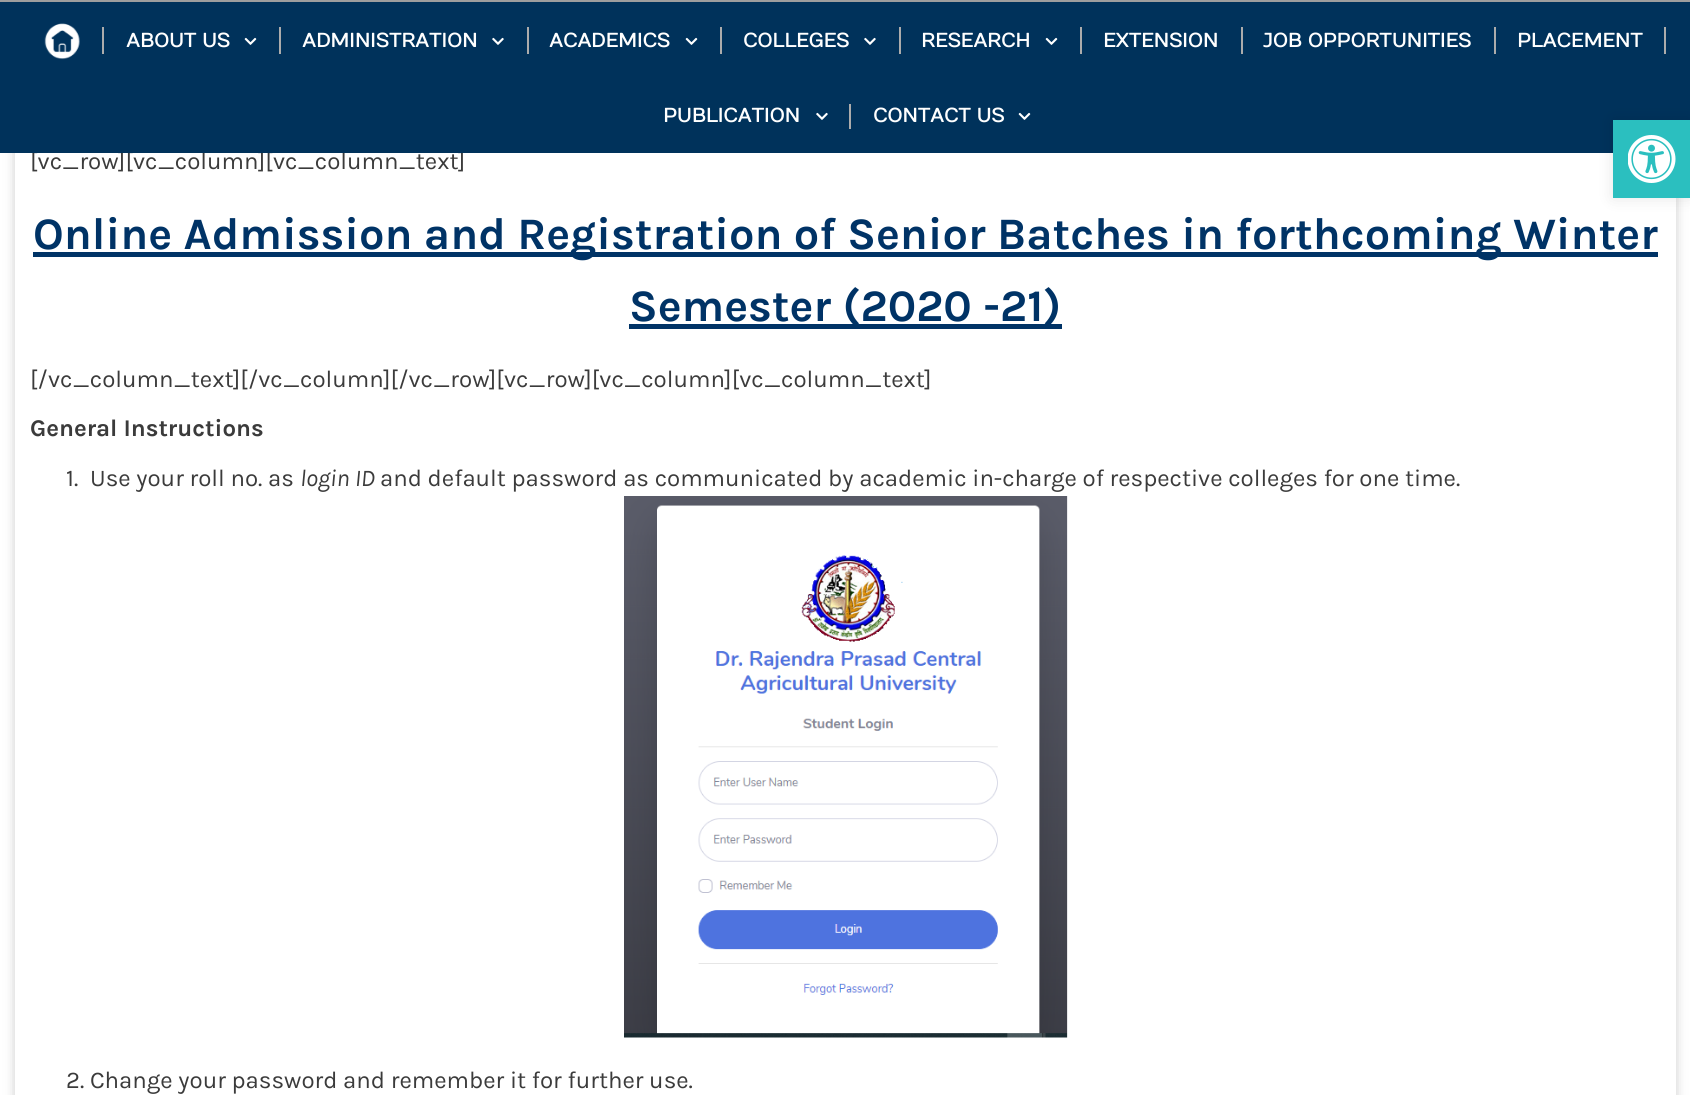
#include <cairo.h>
#include <math.h>
#include <stddef.h>


static void rgb(cairo_t *cr, int r, int g, int b)
{
	cairo_set_source_rgb(cr, r / 255.0, g / 255.0, b / 255.0);
}

static void face(cairo_t *cr, const char *family, double size, int italic, int bold)
{
	cairo_select_font_face(cr, family, italic ? CAIRO_FONT_SLANT_ITALIC : CAIRO_FONT_SLANT_NORMAL,
		bold ? CAIRO_FONT_WEIGHT_BOLD : CAIRO_FONT_WEIGHT_NORMAL);
	cairo_set_font_size(cr, size);
}

static void label(cairo_t *cr, double x, double y, const char *s)
{
	cairo_move_to(cr, x, y);
	cairo_show_text(cr, s);
}

static void rect(cairo_t *cr, double x, double y, double w, double h)
{
	cairo_rectangle(cr, x, y, w, h);
	cairo_fill(cr);
}

static void rrect(cairo_t *cr, double x, double y, double w, double h, double r)
{
	cairo_new_sub_path(cr);
	cairo_arc(cr, x + w - r, y + h - r, r, 0, M_PI / 2);
	cairo_arc(cr, x + r, y + h - r, r, M_PI / 2, M_PI);
	cairo_arc(cr, x + r, y + r, r, M_PI, 1.5 * M_PI);
	cairo_arc(cr, x + w - r, y + r, r, 1.5 * M_PI, 2 * M_PI);
	cairo_close_path(cr);
}

static void soft_shadow(cairo_t *cr, double x, double y, double w, double h, double r, double blur, double alpha)
{
	cairo_push_group_with_content(cr, CAIRO_CONTENT_ALPHA);
	cairo_set_operator(cr, CAIRO_OPERATOR_SOURCE);
	for (int i = 15; i >= -15 && fmin(w, h) + blur * i / 3 > 0; i -= 2) {
		double e = blur * i / 6;
		cairo_set_source_rgba(cr, 0, 0, 0, alpha * erfc((i - 1) / 8.5) / 2);
		rrect(cr, x - e, y - e, w + 2 * e, h + 2 * e, fmax(0, fmin(r + e + blur * .6, fmin(w, h) / 2 + e)));
		cairo_fill(cr);
	}
	cairo_pattern_t *soft = cairo_pop_group(cr);
	cairo_mask(cr, soft);
	cairo_pattern_destroy(soft);
}

static void image(cairo_t *cr, const char *path, double x, double y, double w, double h)
{
	cairo_surface_t *image = cairo_image_surface_create_from_png(path);
	cairo_save(cr);
	cairo_set_source_surface(cr, image, x, y);
	cairo_rectangle(cr, x, y, w, h);
	cairo_fill(cr);
	cairo_restore(cr);
	cairo_surface_destroy(image);
}

static void draw(cairo_t *cr) {
	rgb(cr, 255, 255, 255);
	cairo_paint(cr);
	cairo_save(cr);
	cairo_set_fill_rule(cr, CAIRO_FILL_RULE_EVEN_ODD);
	cairo_new_path(cr);
	cairo_move_to(cr, 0, 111);
	cairo_line_to(cr, 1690, 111);
	cairo_line_to(cr, 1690, 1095);
	cairo_line_to(cr, 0, 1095);
	cairo_close_path(cr);
	cairo_move_to(cr, 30, 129);
	cairo_line_to(cr, 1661, 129);
	cairo_curve_to(cr, 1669.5, 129, 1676, 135.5, 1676, 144);
	cairo_line_to(cr, 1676, 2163);
	cairo_curve_to(cr, 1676, 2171.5, 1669.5, 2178, 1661, 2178);
	cairo_line_to(cr, 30, 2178);
	cairo_curve_to(cr, 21.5, 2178, 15, 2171.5, 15, 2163);
	cairo_line_to(cr, 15, 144);
	cairo_curve_to(cr, 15, 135.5, 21.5, 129, 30, 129);
	cairo_close_path(cr);
	cairo_clip(cr);
	rgb(cr, 0, 0, 0);
	soft_shadow(cr, 21, 135, 1649, 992, 9, 7.5, 0.5);
	cairo_restore(cr);
	face(cr, "Karla", 24, 0, 0);
	rgb(cr, 59, 59, 59);
	label(cr, 30, 169, "[vc_row][vc_column][vc_column_text]");
	rgb(cr, 0, 50, 91);
	rect(cr, 0, 2, 1690, 151);
	rgb(cr, 158, 158, 158);
	rect(cr, 0, 0, 1690, 2);
	image(cr, "image0.png", 44, 23, 36, 37);
	rgb(cr, 172, 172, 172);
	rect(cr, 102, 27, 2, 27);
	face(cr, "Numans", 19.5, 0, 1);
	rgb(cr, 255, 255, 255);
	label(cr, 126, 47, "ABOUT US");
	image(cr, "image1.png", 244, 37, 13, 8);
	rgb(cr, 172, 172, 172);
	rect(cr, 279, 27, 2, 27);
	rgb(cr, 255, 255, 255);
	label(cr, 302, 47, "ADMINISTRATION");
	image(cr, "image2.png", 492, 37, 12, 8);
	rgb(cr, 172, 172, 172);
	rect(cr, 527, 27, 2, 27);
	rgb(cr, 255, 255, 255);
	label(cr, 549, 47, "ACADEMICS");
	image(cr, "image1.png", 685, 37, 13, 8);
	rgb(cr, 172, 172, 172);
	rect(cr, 720, 27, 2, 27);
	rgb(cr, 255, 255, 255);
	label(cr, 743, 47, "COLLEGES");
	image(cr, "image2.png", 864, 37, 12, 8);
	rgb(cr, 172, 172, 172);
	rect(cr, 899, 27, 2, 27);
	rgb(cr, 255, 255, 255);
	label(cr, 921, 47, "RESEARCH");
	image(cr, "image1.png", 1045, 37, 13, 8);
	rgb(cr, 172, 172, 172);
	rect(cr, 1080, 27, 2, 27);
	rgb(cr, 255, 255, 255);
	label(cr, 1103, 47, "EXTENSION");
	rgb(cr, 172, 172, 172);
	rect(cr, 1241, 27, 2, 27);
	rgb(cr, 255, 255, 255);
	label(cr, 1263, 47, "JOB OPPORTUNITIES");
	rgb(cr, 172, 172, 172);
	rect(cr, 1494, 27, 2, 27);
	rgb(cr, 255, 255, 255);
	label(cr, 1517, 47, "PLACEMENT");
	rgb(cr, 172, 172, 172);
	rect(cr, 1664, 27, 2, 27);
	rgb(cr, 255, 255, 255);
	label(cr, 663, 122, "PUBLICATION");
	image(cr, "image2.png", 816, 112, 12, 8);
	rgb(cr, 172, 172, 172);
	rect(cr, 849, 104, 2, 25);
	rgb(cr, 255, 255, 255);
	label(cr, 873, 122, "CONTACT US");
	image(cr, "image1.png", 1018, 112, 13, 8);
	rgb(cr, 0, 0, 0);
	soft_shadow(cr, 1613, 120, 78, 78, 0, 7.5, 0.1);
	rgb(cr, 43, 191, 191);
	rect(cr, 1613, 120, 77, 78);
	image(cr, "image3.png", 1628, 135, 48, 48);
	rgb(cr, 0, 51, 102);
	rect(cr, 33, 252, 1625, 5);
	face(cr, "Karla", 45, 0, 1);
	label(cr, 33, 249, "Online Admission and Registration of Senior Batches in forthcoming Winter");
	rect(cr, 629, 324, 433, 5);
	label(cr, 629, 321, "Semester (2020 -21)");
	face(cr, "Karla", 24, 0, 0);
	rgb(cr, 59, 59, 59);
	label(cr, 30, 387, "[/vc_column_text][/vc_column][/vc_row][vc_row][vc_column][vc_column_text]");
	face(cr, "Karla", 24, 0, 1);
	label(cr, 30, 436, "General Instructions");
	face(cr, "Karla", 24, 0, 0);
	label(cr, 66, 486, "1.");
	label(cr, 90, 486, "Use your roll no. as");
	face(cr, "Karla", 24, 1, 0);
	label(cr, 300, 486, "login ID");
	face(cr, "Karla", 24, 0, 0);
	label(cr, 380, 486, "and default password as communicated by academic in-charge of respective colleges for one time.");
	image(cr, "image4.png", 624, 496, 444, 542);
	label(cr, 66, 1088, "2. Change your password and remember it for further use.");
}

int main(void) {
	cairo_surface_t *surface = cairo_image_surface_create(CAIRO_FORMAT_RGB24, 1690, 1095);
	cairo_t *cr = cairo_create(surface);
	cairo_font_options_t *options = cairo_font_options_create();
	cairo_font_options_set_hint_metrics(options, CAIRO_HINT_METRICS_OFF);
	cairo_font_options_set_hint_style(options, CAIRO_HINT_STYLE_NONE);
	cairo_set_font_options(cr, options);
	cairo_set_miter_limit(cr, 4);
	draw(cr);
	cairo_surface_write_to_png(surface, "render.png");
	cairo_font_options_destroy(options);
	cairo_destroy(cr);
	cairo_surface_destroy(surface);
	return 0;
}
